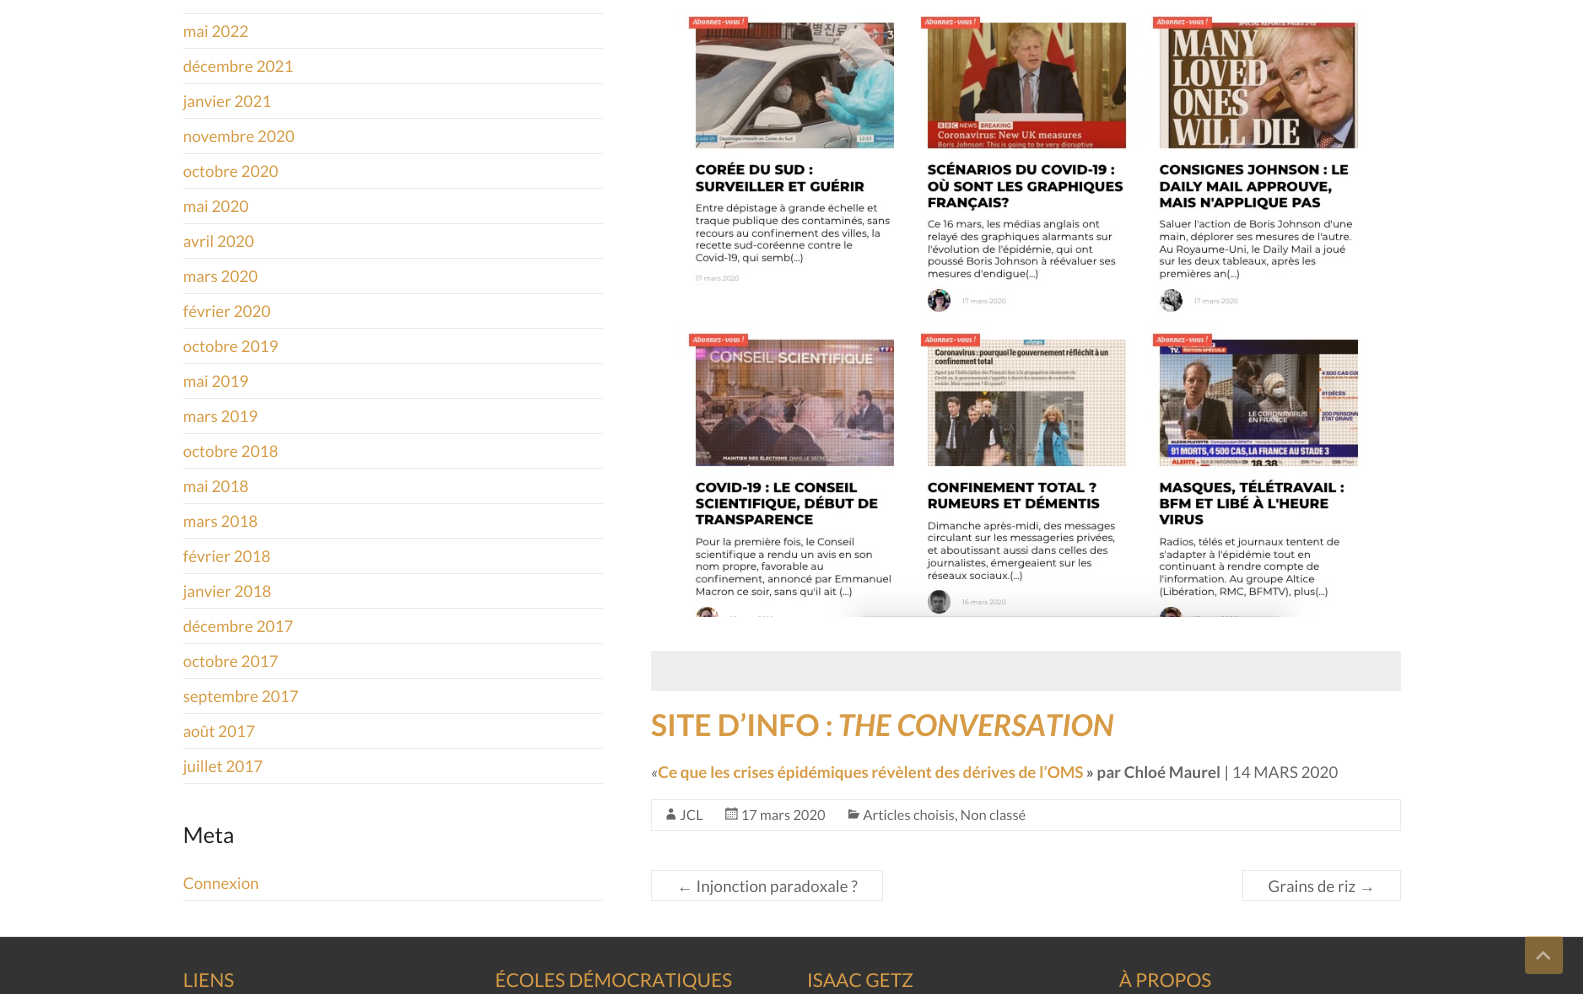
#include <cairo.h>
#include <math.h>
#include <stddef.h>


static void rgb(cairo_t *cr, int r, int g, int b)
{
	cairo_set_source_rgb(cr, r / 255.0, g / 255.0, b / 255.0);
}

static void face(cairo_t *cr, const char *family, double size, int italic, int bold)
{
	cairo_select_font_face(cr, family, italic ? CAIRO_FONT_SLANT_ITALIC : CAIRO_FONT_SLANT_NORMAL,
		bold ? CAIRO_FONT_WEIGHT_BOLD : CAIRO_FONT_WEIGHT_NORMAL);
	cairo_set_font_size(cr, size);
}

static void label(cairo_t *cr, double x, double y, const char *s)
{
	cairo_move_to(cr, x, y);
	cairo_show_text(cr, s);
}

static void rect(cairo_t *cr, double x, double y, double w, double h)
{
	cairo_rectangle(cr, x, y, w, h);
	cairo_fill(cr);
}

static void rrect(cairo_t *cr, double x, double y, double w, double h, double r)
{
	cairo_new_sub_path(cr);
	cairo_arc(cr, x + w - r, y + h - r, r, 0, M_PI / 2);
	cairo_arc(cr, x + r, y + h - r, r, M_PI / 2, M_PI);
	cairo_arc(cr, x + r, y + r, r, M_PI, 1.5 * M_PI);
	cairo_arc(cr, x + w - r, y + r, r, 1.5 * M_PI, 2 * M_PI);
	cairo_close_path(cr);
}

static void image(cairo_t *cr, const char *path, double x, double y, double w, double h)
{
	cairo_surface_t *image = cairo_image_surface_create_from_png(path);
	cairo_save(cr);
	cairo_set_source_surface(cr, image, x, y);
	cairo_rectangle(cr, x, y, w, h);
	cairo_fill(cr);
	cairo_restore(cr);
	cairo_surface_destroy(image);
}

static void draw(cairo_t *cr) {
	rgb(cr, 255, 255, 255);
	cairo_paint(cr);
	rgb(cr, 234, 234, 234);
	rect(cr, 183, 13, 420, 1);
	rect(cr, 183, 48, 420, 1);
	face(cr, "Lato", 16, 0, 0);
	rgb(cr, 214, 155, 68);
	label(cr, 183, 37, "mai 2022");
	rgb(cr, 234, 234, 234);
	rect(cr, 183, 83, 420, 1);
	rgb(cr, 214, 155, 68);
	label(cr, 183, 72, "décembre 2021");
	rgb(cr, 234, 234, 234);
	rect(cr, 183, 118, 420, 1);
	rgb(cr, 214, 155, 68);
	label(cr, 183, 107, "janvier 2021");
	rgb(cr, 234, 234, 234);
	rect(cr, 183, 153, 420, 1);
	rgb(cr, 214, 155, 68);
	label(cr, 183, 142, "novembre 2020");
	rgb(cr, 234, 234, 234);
	rect(cr, 183, 188, 420, 1);
	rgb(cr, 214, 155, 68);
	label(cr, 183, 177, "octobre 2020");
	rgb(cr, 234, 234, 234);
	rect(cr, 183, 223, 420, 1);
	rgb(cr, 214, 155, 68);
	label(cr, 183, 212, "mai 2020");
	rgb(cr, 234, 234, 234);
	rect(cr, 183, 258, 420, 1);
	rgb(cr, 214, 155, 68);
	label(cr, 183, 247, "avril 2020");
	rgb(cr, 234, 234, 234);
	rect(cr, 183, 293, 420, 1);
	rgb(cr, 214, 155, 68);
	label(cr, 183, 282, "mars 2020");
	rgb(cr, 234, 234, 234);
	rect(cr, 183, 328, 420, 1);
	rgb(cr, 214, 155, 68);
	label(cr, 183, 317, "février 2020");
	rgb(cr, 234, 234, 234);
	rect(cr, 183, 363, 420, 1);
	rgb(cr, 214, 155, 68);
	label(cr, 183, 352, "octobre 2019");
	rgb(cr, 234, 234, 234);
	rect(cr, 183, 398, 420, 1);
	rgb(cr, 214, 155, 68);
	label(cr, 183, 387, "mai 2019");
	rgb(cr, 234, 234, 234);
	rect(cr, 183, 433, 420, 1);
	rgb(cr, 214, 155, 68);
	label(cr, 183, 422, "mars 2019");
	rgb(cr, 234, 234, 234);
	rect(cr, 183, 468, 420, 1);
	rgb(cr, 214, 155, 68);
	label(cr, 183, 457, "octobre 2018");
	rgb(cr, 234, 234, 234);
	rect(cr, 183, 503, 420, 1);
	rgb(cr, 214, 155, 68);
	label(cr, 183, 492, "mai 2018");
	rgb(cr, 234, 234, 234);
	rect(cr, 183, 538, 420, 1);
	rgb(cr, 214, 155, 68);
	label(cr, 183, 527, "mars 2018");
	rgb(cr, 234, 234, 234);
	rect(cr, 183, 573, 420, 1);
	rgb(cr, 214, 155, 68);
	label(cr, 183, 562, "février 2018");
	rgb(cr, 234, 234, 234);
	rect(cr, 183, 608, 420, 1);
	rgb(cr, 214, 155, 68);
	label(cr, 183, 597, "janvier 2018");
	rgb(cr, 234, 234, 234);
	rect(cr, 183, 643, 420, 1);
	rgb(cr, 214, 155, 68);
	label(cr, 183, 632, "décembre 2017");
	rgb(cr, 234, 234, 234);
	rect(cr, 183, 678, 420, 1);
	rgb(cr, 214, 155, 68);
	label(cr, 183, 667, "octobre 2017");
	rgb(cr, 234, 234, 234);
	rect(cr, 183, 713, 420, 1);
	rgb(cr, 214, 155, 68);
	label(cr, 183, 702, "septembre 2017");
	rgb(cr, 234, 234, 234);
	rect(cr, 183, 748, 420, 1);
	rgb(cr, 214, 155, 68);
	label(cr, 183, 737, "août 2017");
	rgb(cr, 234, 234, 234);
	rect(cr, 183, 783, 420, 1);
	rgb(cr, 214, 155, 68);
	label(cr, 183, 772, "juillet 2017");
	face(cr, "Lato", 22, 0, 0);
	rgb(cr, 34, 34, 34);
	label(cr, 183, 843, "Meta");
	rgb(cr, 234, 234, 234);
	rect(cr, 183, 900, 420, 1);
	face(cr, "Lato", 16, 0, 0);
	rgb(cr, 214, 155, 68);
	label(cr, 183, 889, "Connexion");
	image(cr, "image0.png", 678, 15, 689, 602);
	rgb(cr, 238, 238, 238);
	rect(cr, 651, 651, 750, 40);
	face(cr, "Lato", 30, 0, 1);
	rgb(cr, 214, 155, 68);
	label(cr, 651, 736, "SITE D’INFO :");
	face(cr, "Lato", 30, 1, 1);
	label(cr, 838, 736, "THE CONVERSATION");
	face(cr, "Lato", 16, 1, 0);
	rgb(cr, 102, 102, 102);
	label(cr, 651, 778, "«");
	face(cr, "Lato", 16, 0, 1);
	rgb(cr, 214, 155, 68);
	label(cr, 658, 778, "Ce que les crises épidémiques révèlent des dérives de l’OMS");
	rgb(cr, 102, 102, 102);
	label(cr, 1086, 778, "» par Chloé Maurel");
	face(cr, "Lato", 16, 0, 0);
	label(cr, 1224, 778, "| 14 MARS 2020");
	cairo_rectangle(cr, 651.5, 799.5, 749, 31);
	rgb(cr, 234, 234, 234);
	cairo_set_line_width(cr, 1);
	cairo_stroke(cr);
	image(cr, "image1.png", 666, 808, 10, 12);
	face(cr, "Lato", 14, 0, 0);
	rgb(cr, 102, 102, 102);
	label(cr, 680, 820, "JCL");
	image(cr, "image2.png", 725, 807, 13, 13);
	label(cr, 741, 820, "17 mars 2020");
	image(cr, "image3.png", 848, 809, 12, 10);
	label(cr, 863, 820, "Articles choisis, Non classé");
	face(cr, "Liberation Sans", 16, 0, 0);
	label(cr, 677, 892, "←");
	rgb(cr, 234, 234, 234);
	rect(cr, 651, 900, 42, 1);
	rect(cr, 651, 870, 232, 1);
	rect(cr, 651, 870, 1, 31);
	rect(cr, 882, 870, 1, 31);
	rect(cr, 693, 900, 190, 1);
	face(cr, "Lato", 16, 0, 0);
	rgb(cr, 102, 102, 102);
	label(cr, 696, 892, "Injonction paradoxale ?");
	label(cr, 1268, 892, "Grains de riz");
	rgb(cr, 234, 234, 234);
	rect(cr, 1242, 870, 159, 1);
	rect(cr, 1242, 900, 117, 1);
	rect(cr, 1242, 870, 1, 31);
	face(cr, "Liberation Sans", 16, 0, 0);
	rgb(cr, 102, 102, 102);
	label(cr, 1359, 892, "→");
	rgb(cr, 234, 234, 234);
	rect(cr, 1400, 870, 1, 31);
	rect(cr, 1359, 900, 42, 1);
	rgb(cr, 51, 51, 51);
	rect(cr, 0, 937, 1583, 57);
	rgb(cr, 234, 234, 234);
	rect(cr, 0, 936, 1583, 1);
	cairo_set_source_rgba(cr, 0.839, 0.608, 0.267, 0.5);
	rrect(cr, 1525, 936, 38, 38, 3);
	cairo_fill(cr);
	image(cr, "image4.png", 1536, 951, 15, 9);
	face(cr, "Lato", 19, 0, 0);
	rgb(cr, 214, 155, 68);
	label(cr, 183, 987, "LIENS");
	label(cr, 495, 987, "ÉCOLES DÉMOCRATIQUES");
	label(cr, 807, 987, "ISAAC GETZ");
	label(cr, 1119, 987, "À PROPOS");
}

int main(void) {
	cairo_surface_t *surface = cairo_image_surface_create(CAIRO_FORMAT_RGB24, 1583, 994);
	cairo_t *cr = cairo_create(surface);
	cairo_font_options_t *options = cairo_font_options_create();
	cairo_font_options_set_hint_metrics(options, CAIRO_HINT_METRICS_OFF);
	cairo_font_options_set_hint_style(options, CAIRO_HINT_STYLE_NONE);
	cairo_set_font_options(cr, options);
	cairo_set_miter_limit(cr, 4);
	draw(cr);
	cairo_surface_write_to_png(surface, "render.png");
	cairo_font_options_destroy(options);
	cairo_destroy(cr);
	cairo_surface_destroy(surface);
	return 0;
}
